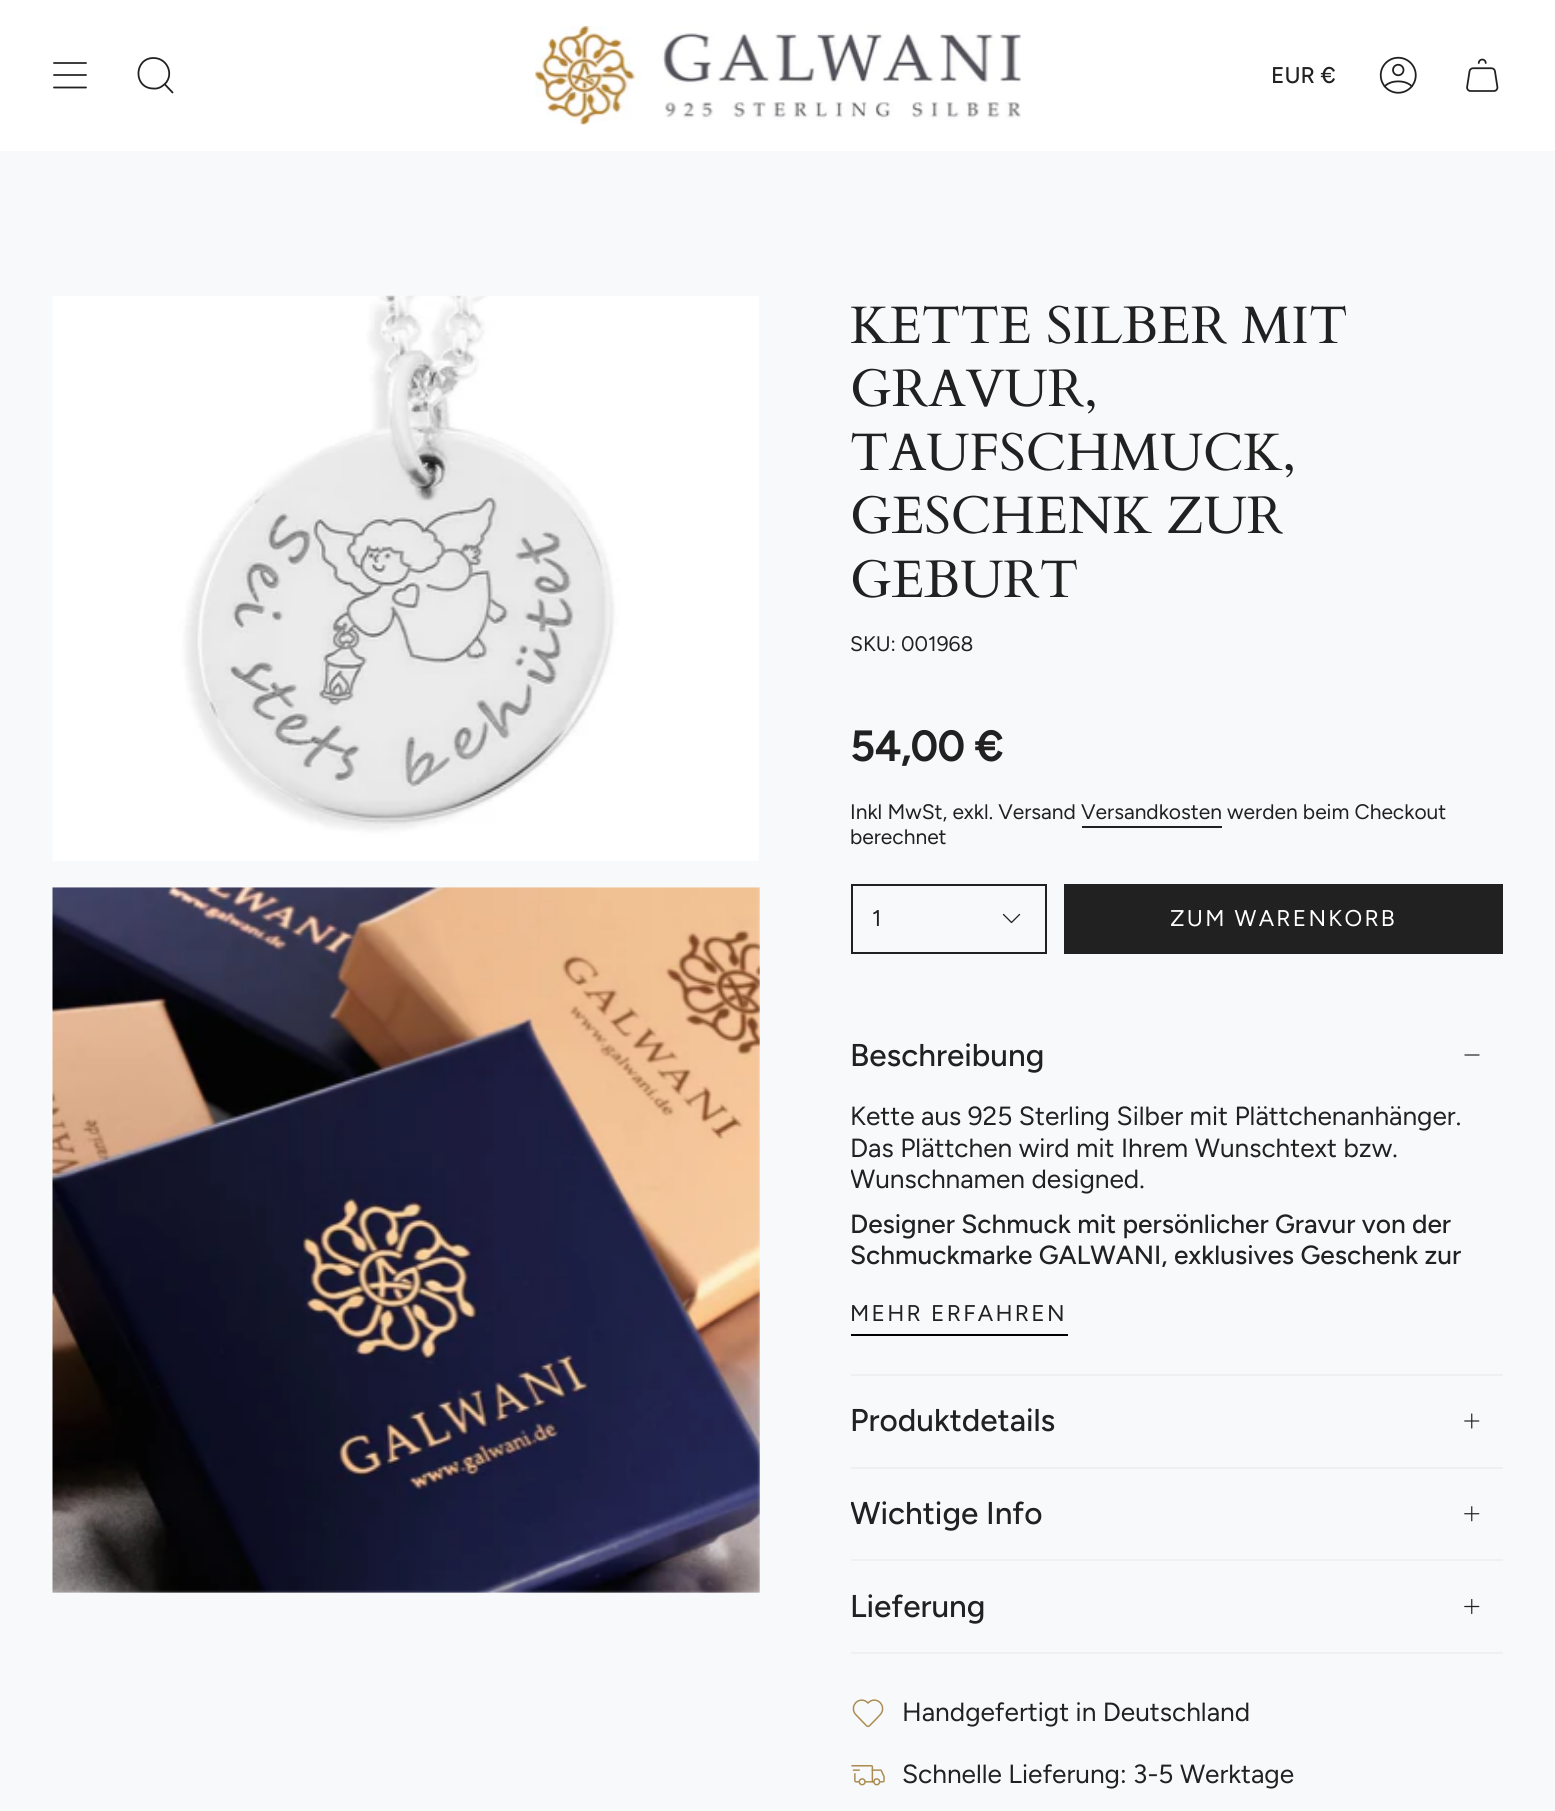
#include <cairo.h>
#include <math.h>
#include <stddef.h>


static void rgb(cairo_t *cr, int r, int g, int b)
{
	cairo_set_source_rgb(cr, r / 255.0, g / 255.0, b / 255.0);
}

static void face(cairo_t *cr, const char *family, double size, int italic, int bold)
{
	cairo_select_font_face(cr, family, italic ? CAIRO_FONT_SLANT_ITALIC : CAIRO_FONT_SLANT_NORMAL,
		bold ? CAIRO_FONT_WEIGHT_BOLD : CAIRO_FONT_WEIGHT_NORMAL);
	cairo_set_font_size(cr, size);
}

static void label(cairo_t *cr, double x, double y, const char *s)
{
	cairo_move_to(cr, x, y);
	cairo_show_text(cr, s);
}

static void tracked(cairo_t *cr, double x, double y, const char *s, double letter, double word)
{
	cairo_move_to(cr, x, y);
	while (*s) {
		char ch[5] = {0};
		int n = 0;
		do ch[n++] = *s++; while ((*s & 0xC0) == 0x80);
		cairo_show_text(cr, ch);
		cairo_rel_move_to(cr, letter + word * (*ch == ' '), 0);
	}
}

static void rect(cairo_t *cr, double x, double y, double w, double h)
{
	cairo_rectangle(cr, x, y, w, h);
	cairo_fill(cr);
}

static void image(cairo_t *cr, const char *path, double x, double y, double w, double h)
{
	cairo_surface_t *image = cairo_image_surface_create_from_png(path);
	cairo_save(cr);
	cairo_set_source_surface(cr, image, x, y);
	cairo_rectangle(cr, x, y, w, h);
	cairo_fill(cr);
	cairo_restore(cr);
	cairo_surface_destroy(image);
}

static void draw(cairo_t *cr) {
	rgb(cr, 247, 249, 250);
	cairo_paint(cr);
	rgb(cr, 255, 255, 255);
	rect(cr, 0, 0, 1555, 151);
	cairo_new_path(cr);
	cairo_move_to(cr, 54, 63);
	cairo_line_to(cr, 86, 63);
	cairo_move_to(cr, 54, 75);
	cairo_line_to(cr, 86, 75);
	cairo_move_to(cr, 54, 87.5);
	cairo_line_to(cr, 86, 87.5);
	rgb(cr, 33, 33, 33);
	cairo_set_line_width(cr, 1.8);
	cairo_set_line_cap(cr, CAIRO_LINE_CAP_ROUND);
	cairo_set_line_join(cr, CAIRO_LINE_JOIN_ROUND);
	cairo_stroke(cr);
	cairo_new_path(cr);
	cairo_move_to(cr, 153.5, 58);
	cairo_curve_to(cr, 168.5, 58, 175, 77, 163, 85.5);
	cairo_curve_to(cr, 160, 88, 156.5, 89, 153, 88.5);
	cairo_curve_to(cr, 133, 88, 134, 58, 153.5, 58);
	cairo_close_path(cr);
	cairo_move_to(cr, 164.5, 84);
	cairo_line_to(cr, 173, 93);
	cairo_set_line_cap(cr, CAIRO_LINE_CAP_BUTT);
	cairo_set_line_join(cr, CAIRO_LINE_JOIN_MITER);
	cairo_stroke(cr);
	image(cr, "image0.png", 535, 26, 486, 99);
	face(cr, "Figtree Medium", 22.75, 0, 0);
	label(cr, 1271, 83, "EUR €");
	image(cr, "image1.png", 1379, 56, 38, 38);
	image(cr, "image2.png", 1466, 58, 33, 34);
	image(cr, "image3.png", 52, 295, 707, 566);
	image(cr, "image4.png", 52, 887, 708, 706);
	face(cr, "Cardo", 52.75, 0, 0);
	label(cr, 850, 343, "KETTE SILBER MIT");
	label(cr, 850, 406, "GRAVUR,");
	label(cr, 850, 470, "TAUFSCHMUCK,");
	label(cr, 850, 533, "GESCHENK ZUR");
	label(cr, 850, 597, "GEBURT");
	face(cr, "Figtree", 21, 0, 0);
	label(cr, 850, 651, "SKU: 001968");
	face(cr, "Figtree", 42, 0, 1);
	label(cr, 850, 761, "54,00 €");
	face(cr, "Figtree", 21, 0, 0);
	label(cr, 850, 819, "Inkl MwSt, exkl. Versand Versandkosten werden beim Checkout");
	rect(cr, 1082, 826, 140, 2);
	label(cr, 850, 844, "berechnet");
	cairo_rectangle(cr, 852, 885, 194, 68);
	cairo_set_line_width(cr, 2);
	cairo_stroke(cr);
	face(cr, "Figtree", 22.75, 0, 0);
	label(cr, 872, 926, "1");
	cairo_new_path(cr);
	cairo_move_to(cr, 1003.5, 914.5);
	cairo_line_to(cr, 1011.5, 922.5);
	cairo_line_to(cr, 1019.5, 914.5);
	cairo_set_line_width(cr, 1.3);
	cairo_set_line_cap(cr, CAIRO_LINE_CAP_ROUND);
	cairo_set_line_join(cr, CAIRO_LINE_JOIN_ROUND);
	cairo_stroke(cr);
	rect(cr, 1064, 884, 439, 70);
	rgb(cr, 255, 255, 255);
	tracked(cr, 1170, 926, "ZUM WARENKORB", 2.25, 0);
	rgb(cr, 240, 240, 240);
	rect(cr, 851, 1652, 652, 2);
	face(cr, "Figtree Medium", 31.5, 0, 0);
	rgb(cr, 33, 33, 33);
	label(cr, 850, 1066, "Beschreibung");
	cairo_new_path(cr);
	cairo_move_to(cr, 1465, 1055);
	cairo_line_to(cr, 1479, 1055);
	cairo_set_line_width(cr, 1.2);
	cairo_stroke(cr);
	face(cr, "Figtree", 26.25, 0, 0);
	label(cr, 850, 1125, "Kette aus 925 Sterling Silber mit Plättchenanhänger.");
	label(cr, 850, 1157, "Das Plättchen wird mit Ihrem Wunschtext bzw.");
	cairo_save(cr);
	cairo_rectangle(cr, 851, 1101, 652, 273);
	cairo_clip(cr);
	label(cr, 850, 1188, "Wunschnamen designed.");
	cairo_restore(cr);
	face(cr, "Figtree Medium", 26.25, 0, 0);
	label(cr, 850, 1233, "Designer Schmuck mit persönlicher Gravur von der");
	label(cr, 850, 1264, "Schmuckmarke GALWANI, exklusives Geschenk zur");
	rgb(cr, 0, 0, 0);
	rect(cr, 851, 1334, 217, 2);
	face(cr, "Figtree", 22.75, 0, 0);
	rgb(cr, 33, 33, 33);
	tracked(cr, 850, 1321, "MEHR ERFAHREN", 2.25, 0);
	rgb(cr, 240, 240, 240);
	rect(cr, 851, 1374, 652, 2);
	face(cr, "Figtree Medium", 31.5, 0, 0);
	rgb(cr, 33, 33, 33);
	label(cr, 850, 1431, "Produktdetails");
	image(cr, "image5.png", 1464, 1413, 16, 16);
	rgb(cr, 240, 240, 240);
	rect(cr, 851, 1467, 652, 2);
	cairo_save(cr);
	cairo_rectangle(cr, 851, 1010, 652, 644);
	cairo_clip(cr);
	rgb(cr, 33, 33, 33);
	label(cr, 850, 1524, "Wichtige Info");
	cairo_restore(cr);
	image(cr, "image6.png", 1464, 1506, 16, 16);
	rect(cr, 851, 1559, 652, 2);
	rgb(cr, 33, 33, 33);
	label(cr, 850, 1617, "Lieferung");
	image(cr, "image7.png", 1464, 1598, 16, 17);
	image(cr, "image8.png", 852, 1699, 32, 29);
	face(cr, "Figtree", 26.25, 0, 0);
	label(cr, 902, 1721, "Handgefertigt in Deutschland");
	image(cr, "image9.png", 851, 1765, 34, 21);
	label(cr, 902, 1783, "Schnelle Lieferung: 3-5 Werktage");
}

int main(void) {
	cairo_surface_t *surface = cairo_image_surface_create(CAIRO_FORMAT_RGB24, 1555, 1811);
	cairo_t *cr = cairo_create(surface);
	cairo_font_options_t *options = cairo_font_options_create();
	cairo_font_options_set_hint_metrics(options, CAIRO_HINT_METRICS_OFF);
	cairo_font_options_set_hint_style(options, CAIRO_HINT_STYLE_NONE);
	cairo_set_font_options(cr, options);
	cairo_set_miter_limit(cr, 4);
	draw(cr);
	cairo_surface_write_to_png(surface, "render.png");
	cairo_font_options_destroy(options);
	cairo_destroy(cr);
	cairo_surface_destroy(surface);
	return 0;
}
